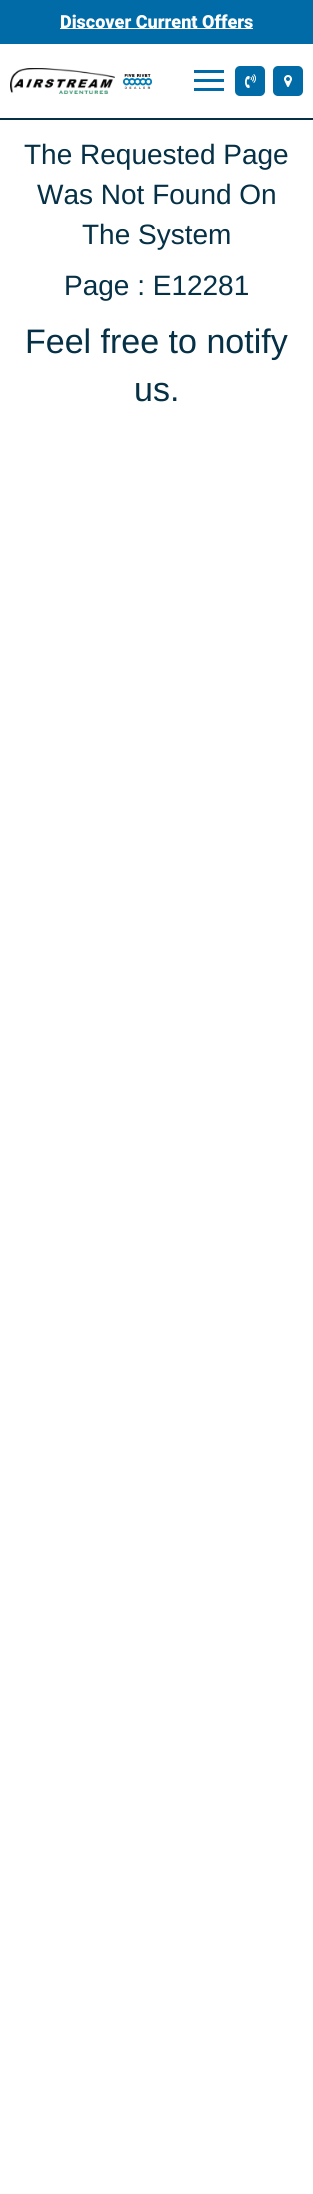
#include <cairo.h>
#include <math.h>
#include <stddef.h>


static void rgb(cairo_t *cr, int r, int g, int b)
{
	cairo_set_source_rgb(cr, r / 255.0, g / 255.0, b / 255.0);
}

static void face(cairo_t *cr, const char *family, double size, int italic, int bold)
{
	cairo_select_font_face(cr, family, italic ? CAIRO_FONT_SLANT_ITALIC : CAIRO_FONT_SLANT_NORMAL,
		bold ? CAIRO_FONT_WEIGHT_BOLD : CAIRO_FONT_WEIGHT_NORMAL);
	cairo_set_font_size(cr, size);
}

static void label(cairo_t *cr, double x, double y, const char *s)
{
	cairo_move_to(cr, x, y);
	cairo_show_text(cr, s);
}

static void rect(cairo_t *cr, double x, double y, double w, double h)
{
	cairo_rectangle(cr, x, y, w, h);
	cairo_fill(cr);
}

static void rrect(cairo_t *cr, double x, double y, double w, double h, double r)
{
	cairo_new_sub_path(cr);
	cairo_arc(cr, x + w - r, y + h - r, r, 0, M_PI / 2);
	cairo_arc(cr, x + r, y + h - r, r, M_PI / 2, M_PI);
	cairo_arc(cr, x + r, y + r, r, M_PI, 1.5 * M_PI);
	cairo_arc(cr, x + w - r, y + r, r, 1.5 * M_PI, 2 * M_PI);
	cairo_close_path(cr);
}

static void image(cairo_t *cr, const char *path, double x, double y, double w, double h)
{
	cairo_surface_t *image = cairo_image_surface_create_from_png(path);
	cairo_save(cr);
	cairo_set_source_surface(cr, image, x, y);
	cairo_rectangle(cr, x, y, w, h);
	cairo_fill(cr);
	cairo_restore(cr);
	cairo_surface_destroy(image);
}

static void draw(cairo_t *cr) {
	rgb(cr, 255, 255, 255);
	cairo_paint(cr);
	rgb(cr, 5, 48, 69);
	rect(cr, 0, 118, 313, 2);
	rgb(cr, 0, 107, 166);
	rect(cr, 0, 0, 313, 44);
	face(cr, "Roboto Black", 18, 0, 0);
	rgb(cr, 255, 255, 255);
	label(cr, 60, 28, "Discover Current Offers");
	rect(cr, 60, 28, 193, 1);
	image(cr, "image0.png", 10, 68, 105, 26);
	image(cr, "image1.png", 123, 74, 29, 15);
	rgb(cr, 0, 107, 166);
	rect(cr, 194, 79, 30, 3);
	rect(cr, 194, 70, 30, 3);
	rect(cr, 194, 88, 30, 3);
	rrect(cr, 235, 66, 30, 30, 5);
	cairo_fill(cr);
	image(cr, "image2.png", 245, 74, 11, 14);
	rrect(cr, 273, 66, 30, 30, 5);
	cairo_fill(cr);
	image(cr, "image3.png", 284, 75, 8, 12);
	face(cr, "Arimo", 28, 0, 0);
	rgb(cr, 5, 48, 69);
	label(cr, 24, 164, "The Requested Page");
	label(cr, 37, 204, "Was Not Found On");
	label(cr, 82, 244, "The System");
	label(cr, 64, 295, "Page : E12281");
	face(cr, "Arimo", 34, 0, 0);
	label(cr, 25, 353, "Feel free to notify");
	label(cr, 134, 401, "us.");
}

int main(void) {
	cairo_surface_t *surface = cairo_image_surface_create(CAIRO_FORMAT_RGB24, 313, 2194);
	cairo_t *cr = cairo_create(surface);
	cairo_font_options_t *options = cairo_font_options_create();
	cairo_font_options_set_hint_metrics(options, CAIRO_HINT_METRICS_OFF);
	cairo_font_options_set_hint_style(options, CAIRO_HINT_STYLE_NONE);
	cairo_set_font_options(cr, options);
	cairo_set_miter_limit(cr, 4);
	draw(cr);
	cairo_surface_write_to_png(surface, "render.png");
	cairo_font_options_destroy(options);
	cairo_destroy(cr);
	cairo_surface_destroy(surface);
	return 0;
}
